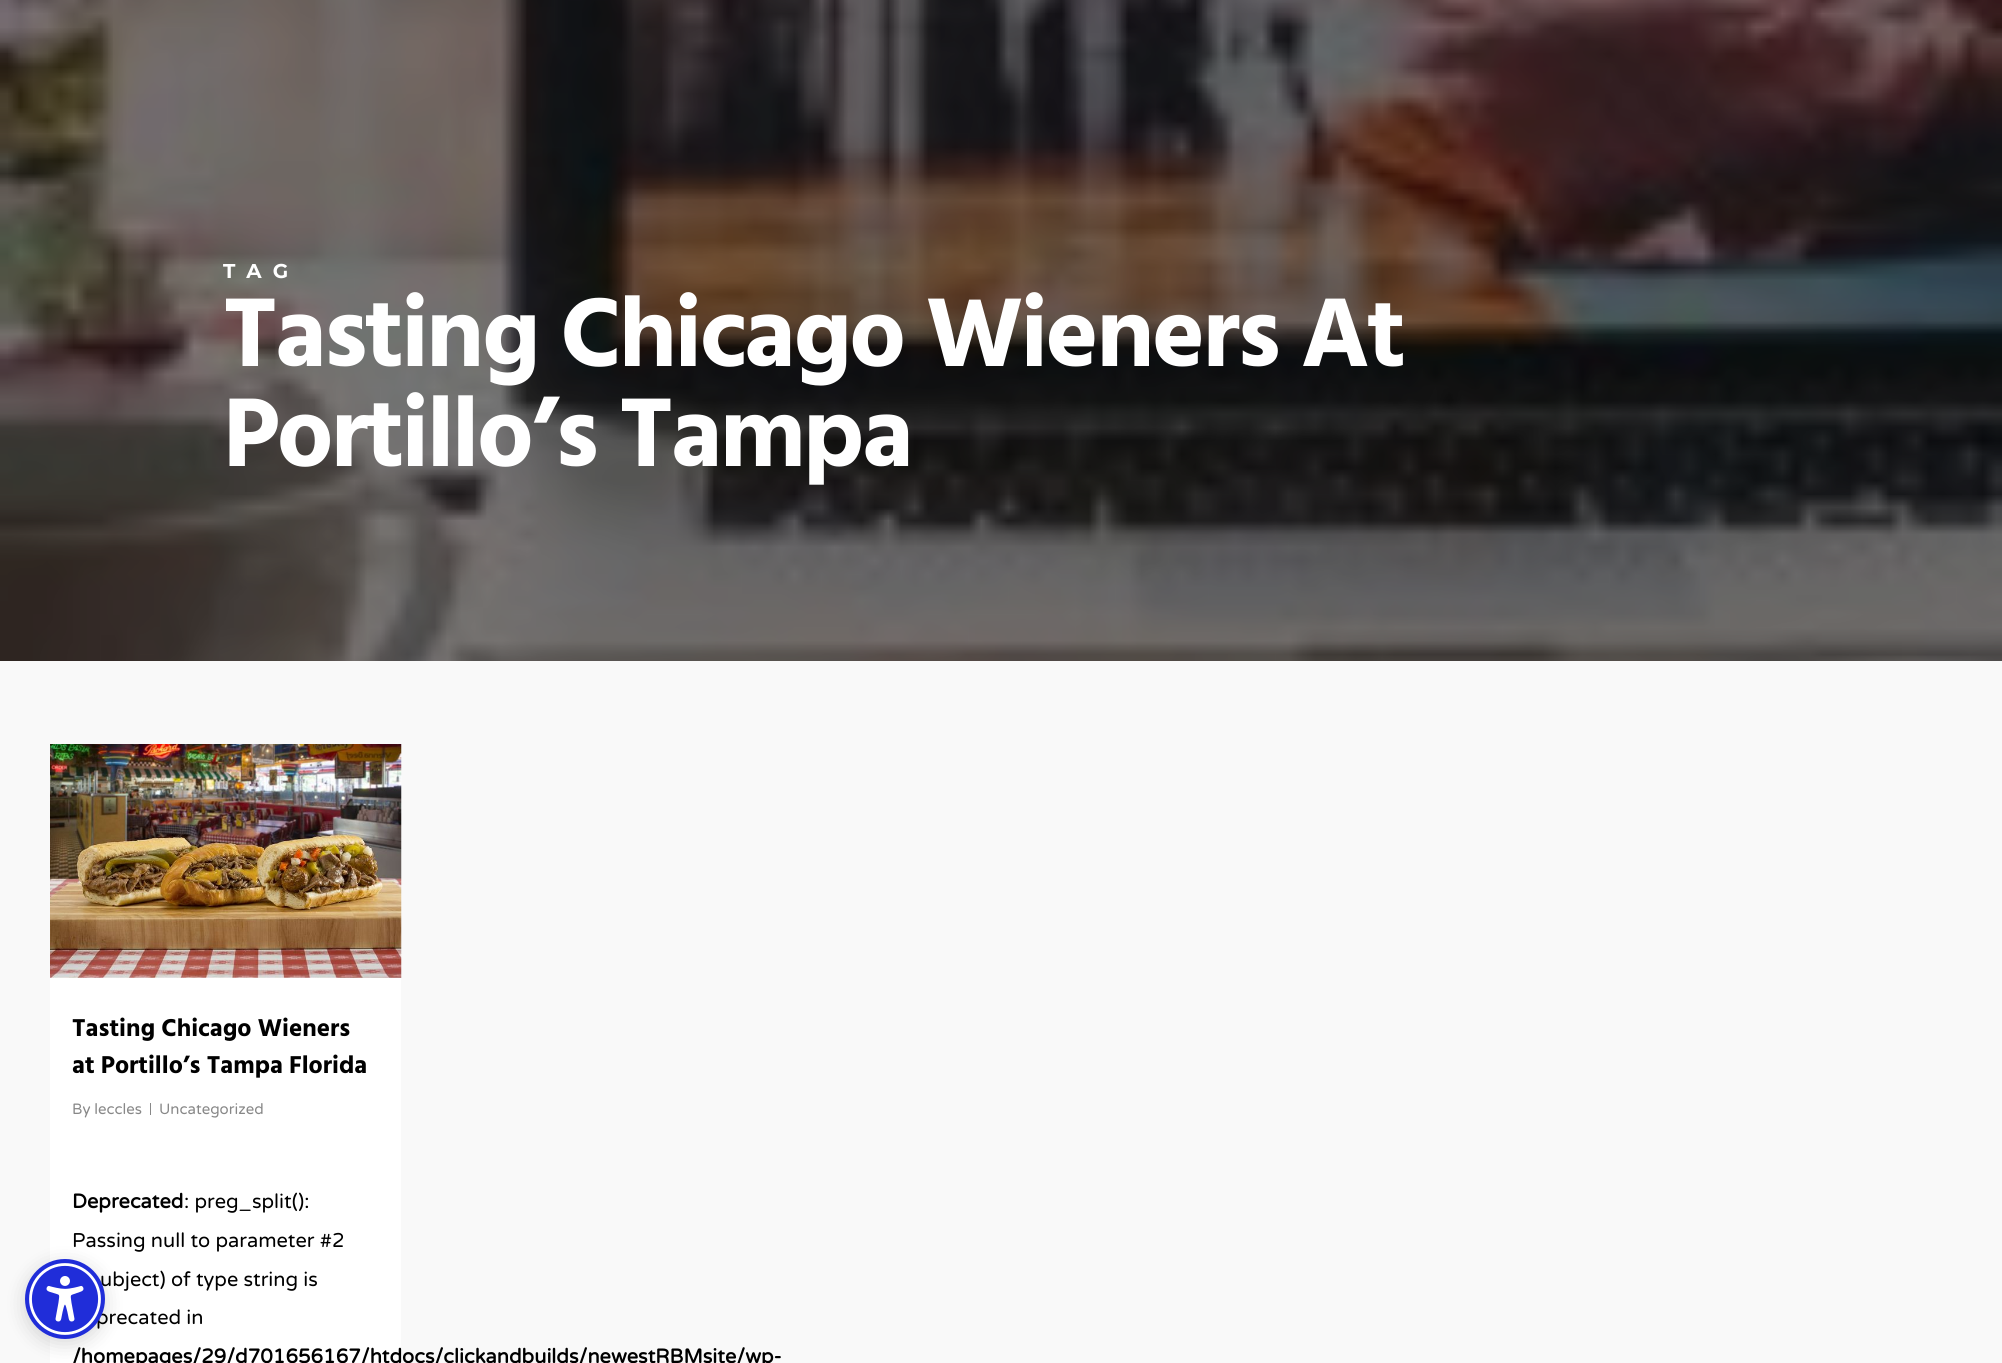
#include <cairo.h>
#include <math.h>
#include <stddef.h>


static void rgb(cairo_t *cr, int r, int g, int b)
{
	cairo_set_source_rgb(cr, r / 255.0, g / 255.0, b / 255.0);
}

static void face(cairo_t *cr, const char *family, double size, int italic, int bold)
{
	cairo_select_font_face(cr, family, italic ? CAIRO_FONT_SLANT_ITALIC : CAIRO_FONT_SLANT_NORMAL,
		bold ? CAIRO_FONT_WEIGHT_BOLD : CAIRO_FONT_WEIGHT_NORMAL);
	cairo_set_font_size(cr, size);
}

static void label(cairo_t *cr, double x, double y, const char *s)
{
	cairo_move_to(cr, x, y);
	cairo_show_text(cr, s);
}

static void tracked(cairo_t *cr, double x, double y, const char *s, double letter, double word)
{
	cairo_move_to(cr, x, y);
	while (*s) {
		char ch[5] = {0};
		int n = 0;
		do ch[n++] = *s++; while ((*s & 0xC0) == 0x80);
		cairo_show_text(cr, ch);
		cairo_rel_move_to(cr, letter + word * (*ch == ' '), 0);
	}
}

static void rect(cairo_t *cr, double x, double y, double w, double h)
{
	cairo_rectangle(cr, x, y, w, h);
	cairo_fill(cr);
}

static void rrect(cairo_t *cr, double x, double y, double w, double h, double r)
{
	cairo_new_sub_path(cr);
	cairo_arc(cr, x + w - r, y + h - r, r, 0, M_PI / 2);
	cairo_arc(cr, x + r, y + h - r, r, M_PI / 2, M_PI);
	cairo_arc(cr, x + r, y + r, r, M_PI, 1.5 * M_PI);
	cairo_arc(cr, x + w - r, y + r, r, 1.5 * M_PI, 2 * M_PI);
	cairo_close_path(cr);
}

static void soft_shadow(cairo_t *cr, double x, double y, double w, double h, double r, double blur, double alpha)
{
	cairo_push_group_with_content(cr, CAIRO_CONTENT_ALPHA);
	cairo_set_operator(cr, CAIRO_OPERATOR_SOURCE);
	for (int i = 15; i >= -15 && fmin(w, h) + blur * i / 3 > 0; i -= 2) {
		double e = blur * i / 6;
		cairo_set_source_rgba(cr, 0, 0, 0, alpha * erfc((i - 1) / 8.5) / 2);
		rrect(cr, x - e, y - e, w + 2 * e, h + 2 * e, fmax(0, fmin(r + e + blur * .6, fmin(w, h) / 2 + e)));
		cairo_fill(cr);
	}
	cairo_pattern_t *soft = cairo_pop_group(cr);
	cairo_mask(cr, soft);
	cairo_pattern_destroy(soft);
}

static void image(cairo_t *cr, const char *path, double x, double y, double w, double h)
{
	cairo_surface_t *image = cairo_image_surface_create_from_png(path);
	cairo_save(cr);
	cairo_set_source_surface(cr, image, x, y);
	cairo_rectangle(cr, x, y, w, h);
	cairo_fill(cr);
	cairo_restore(cr);
	cairo_surface_destroy(image);
}

static void draw(cairo_t *cr) {
	rgb(cr, 255, 255, 255);
	cairo_paint(cr);
	rgb(cr, 249, 249, 249);
	rect(cr, 0, 661, 2002, 702);
	rgb(cr, 255, 255, 255);
	rect(cr, 50, 977, 351, 386);
	rgb(cr, 0, 0, 0);
	soft_shadow(cr, 25, 1264, 80, 80, 40, 10, 0.15);
	face(cr, "Varela Round", 20, 0, 0);
	rgb(cr, 0, 0, 0);
	label(cr, 100, 1286, "ubject) of type string is");
	label(cr, 96, 1324, "precated in");
	image(cr, "image0.png", 25, 1259, 80, 80);
	image(cr, "image1.png", 0, 0, 2002, 661);
	face(cr, "Montserrat Thin", 20, 0, 0);
	rgb(cr, 255, 255, 255);
	tracked(cr, 223, 278, "TAG", 11, 0);
	face(cr, "Hind", 100, 0, 1);
	tracked(cr, 223, 366, "Tasting Chicago Wieners At", -2.5, 0);
	tracked(cr, 223, 466, "Portillo’s Tampa", -2.5, 0);
	image(cr, "image2.png", 50, 744, 352, 234);
	face(cr, "Hind", 25, 0, 1);
	rgb(cr, 0, 0, 0);
	label(cr, 72, 1036, "Tasting Chicago Wieners");
	label(cr, 72, 1073, "at Portillo’s Tampa Florida");
	face(cr, "Varela Round", 15, 0, 0);
	rgb(cr, 136, 136, 136);
	label(cr, 72, 1114, "By leccles");
	rect(cr, 150, 1103, 1, 12);
	label(cr, 159, 1114, "Uncategorized");
	face(cr, "Varela Round", 20, 0, 1);
	rgb(cr, 0, 0, 0);
	label(cr, 72, 1208, "Deprecated");
	face(cr, "Varela Round", 20, 0, 0);
	label(cr, 184, 1208, ": preg_split():");
	label(cr, 72, 1247, "Passing null to parameter #2");
	face(cr, "Varela Round", 20, 0, 1);
	label(cr, 72, 1363, "/homepages/29/d701656167/htdocs/clickandbuilds/newestRBMsite/wp-");
}

int main(void) {
	cairo_surface_t *surface = cairo_image_surface_create(CAIRO_FORMAT_RGB24, 2002, 1363);
	cairo_t *cr = cairo_create(surface);
	cairo_font_options_t *options = cairo_font_options_create();
	cairo_font_options_set_hint_metrics(options, CAIRO_HINT_METRICS_OFF);
	cairo_font_options_set_hint_style(options, CAIRO_HINT_STYLE_NONE);
	cairo_set_font_options(cr, options);
	cairo_set_miter_limit(cr, 4);
	draw(cr);
	cairo_surface_write_to_png(surface, "render.png");
	cairo_font_options_destroy(options);
	cairo_destroy(cr);
	cairo_surface_destroy(surface);
	return 0;
}
